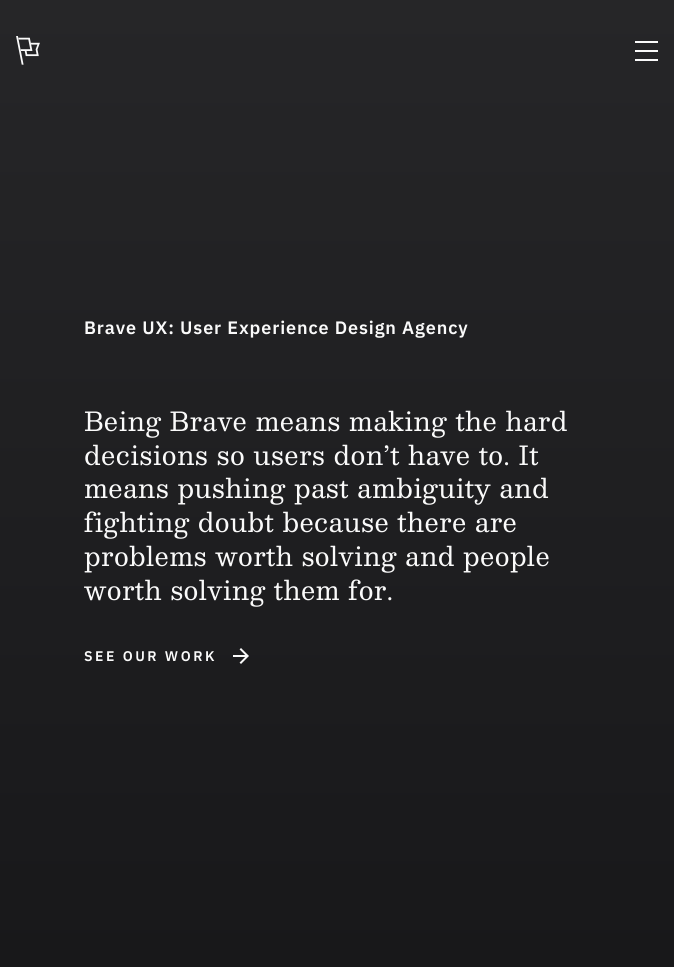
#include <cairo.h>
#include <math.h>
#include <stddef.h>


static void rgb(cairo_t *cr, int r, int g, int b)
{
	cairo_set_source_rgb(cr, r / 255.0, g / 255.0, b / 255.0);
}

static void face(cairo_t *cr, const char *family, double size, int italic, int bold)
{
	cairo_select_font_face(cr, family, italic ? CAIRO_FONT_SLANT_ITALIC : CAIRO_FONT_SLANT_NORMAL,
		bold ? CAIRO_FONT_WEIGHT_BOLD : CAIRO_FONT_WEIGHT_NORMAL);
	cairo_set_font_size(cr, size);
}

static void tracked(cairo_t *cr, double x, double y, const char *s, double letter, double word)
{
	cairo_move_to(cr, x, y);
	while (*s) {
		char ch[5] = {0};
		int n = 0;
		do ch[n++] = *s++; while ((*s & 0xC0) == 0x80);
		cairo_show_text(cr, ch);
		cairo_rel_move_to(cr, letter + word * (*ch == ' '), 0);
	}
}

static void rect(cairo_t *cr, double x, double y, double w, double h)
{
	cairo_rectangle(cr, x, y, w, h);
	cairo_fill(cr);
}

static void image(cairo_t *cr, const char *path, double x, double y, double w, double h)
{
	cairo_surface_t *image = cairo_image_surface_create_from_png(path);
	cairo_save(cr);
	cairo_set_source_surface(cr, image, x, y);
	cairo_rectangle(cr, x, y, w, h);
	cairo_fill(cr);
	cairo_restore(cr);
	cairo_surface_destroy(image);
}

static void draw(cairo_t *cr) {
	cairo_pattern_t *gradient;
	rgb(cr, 255, 255, 255);
	cairo_paint(cr);
	gradient = cairo_pattern_create_linear(337, 0, 337, 967);
	cairo_pattern_add_color_stop_rgba(gradient, 0, 0.149, 0.149, 0.157, 1);
	cairo_pattern_add_color_stop_rgba(gradient, 1, 0.094, 0.094, 0.102, 1);
	cairo_set_source(cr, gradient);
	cairo_pattern_destroy(gradient);
	rect(cr, 0, 0, 674, 967);
	image(cr, "image0.png", 16, 36, 24, 29);
	rgb(cr, 250, 250, 250);
	rect(cr, 635, 41, 23, 2);
	rect(cr, 635, 50, 23, 2);
	rect(cr, 635, 59, 23, 2);
	face(cr, "IBM Plex Sans SemiBold", 18, 0, 0);
	tracked(cr, 84, 334, "Brave UX: User Experience Design Agency", 0.9, 0);
	face(cr, "Besley", 26, 0, 0);
	tracked(cr, 84, 431, "Being Brave means making the hard", 0.4, 0);
	tracked(cr, 84, 465, "decisions so users don’t have to. It", 0.4, 0);
	tracked(cr, 84, 498, "means pushing past ambiguity and", 0.4, 0);
	tracked(cr, 84, 532, "fighting doubt because there are", 0.4, 0);
	tracked(cr, 84, 566, "problems worth solving and people", 0.4, 0);
	tracked(cr, 84, 600, "worth solving them for.", 0.4, 0);
	face(cr, "IBM Plex Sans SemiBold", 14, 0, 0);
	tracked(cr, 84, 661, "SEE OUR WORK", 2.5, 0);
	image(cr, "image1.png", 233, 648, 16, 16);
}

int main(void) {
	cairo_surface_t *surface = cairo_image_surface_create(CAIRO_FORMAT_RGB24, 674, 967);
	cairo_t *cr = cairo_create(surface);
	cairo_font_options_t *options = cairo_font_options_create();
	cairo_font_options_set_hint_metrics(options, CAIRO_HINT_METRICS_OFF);
	cairo_font_options_set_hint_style(options, CAIRO_HINT_STYLE_NONE);
	cairo_set_font_options(cr, options);
	cairo_set_miter_limit(cr, 4);
	draw(cr);
	cairo_surface_write_to_png(surface, "render.png");
	cairo_font_options_destroy(options);
	cairo_destroy(cr);
	cairo_surface_destroy(surface);
	return 0;
}
